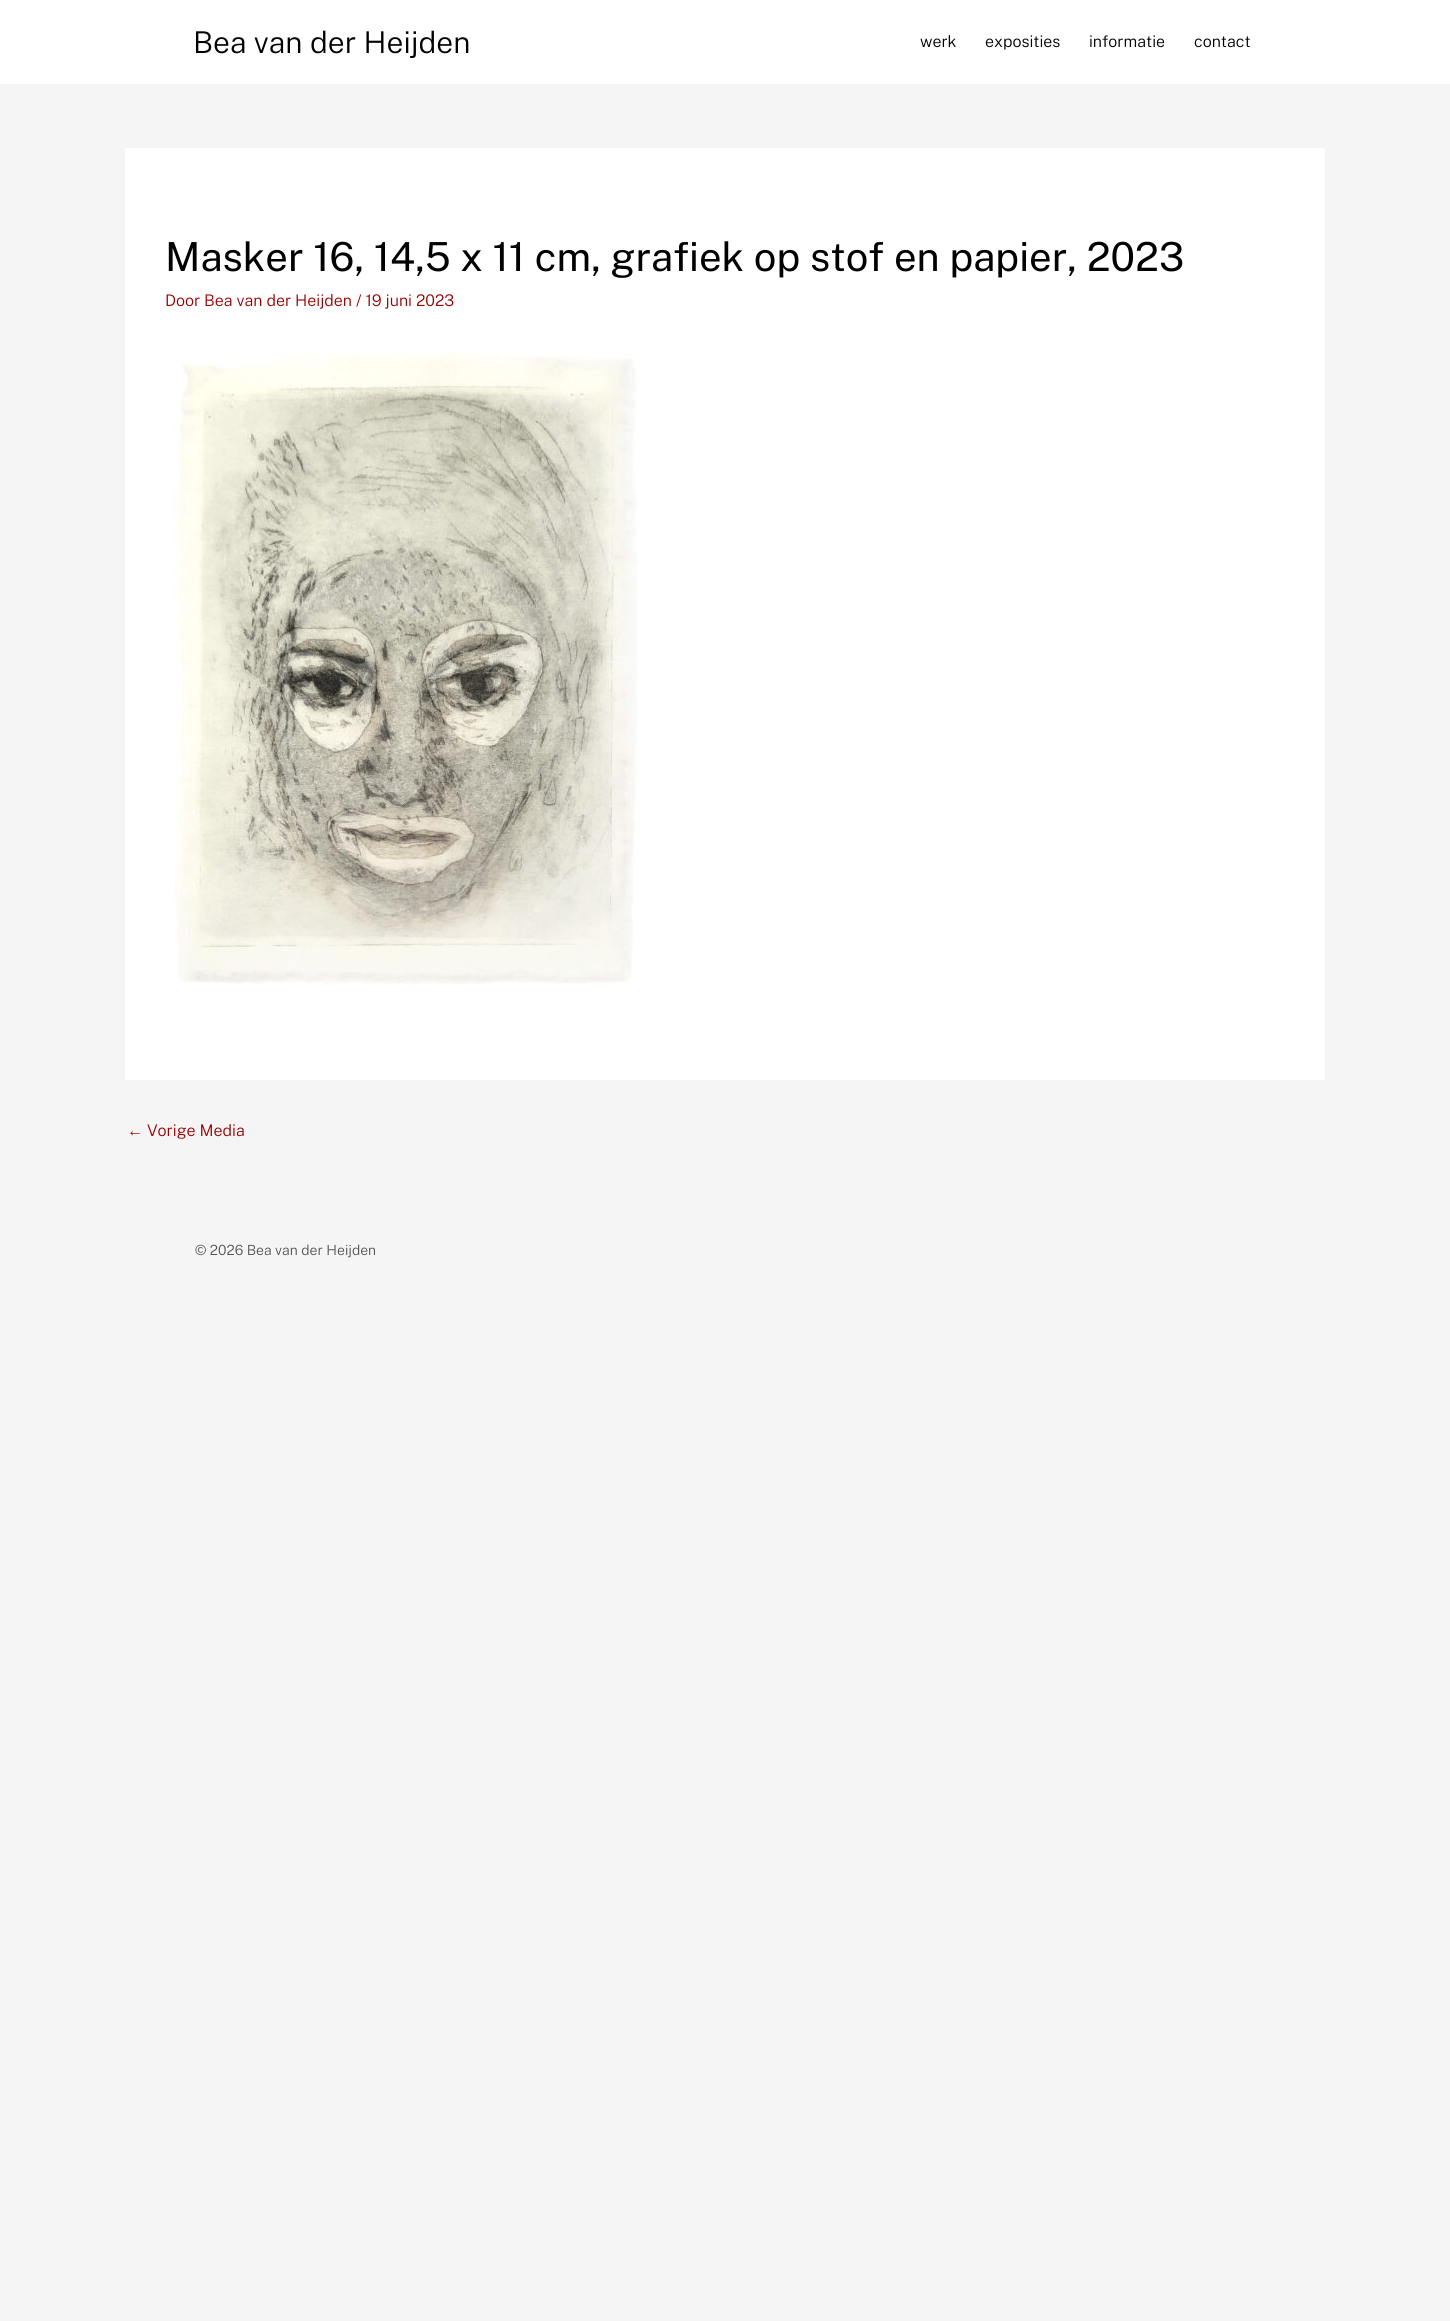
#include <cairo.h>
#include <math.h>
#include <stddef.h>


static void rgb(cairo_t *cr, int r, int g, int b)
{
	cairo_set_source_rgb(cr, r / 255.0, g / 255.0, b / 255.0);
}

static void face(cairo_t *cr, const char *family, double size, int italic, int bold)
{
	cairo_select_font_face(cr, family, italic ? CAIRO_FONT_SLANT_ITALIC : CAIRO_FONT_SLANT_NORMAL,
		bold ? CAIRO_FONT_WEIGHT_BOLD : CAIRO_FONT_WEIGHT_NORMAL);
	cairo_set_font_size(cr, size);
}

static void label(cairo_t *cr, double x, double y, const char *s)
{
	cairo_move_to(cr, x, y);
	cairo_show_text(cr, s);
}

static void rect(cairo_t *cr, double x, double y, double w, double h)
{
	cairo_rectangle(cr, x, y, w, h);
	cairo_fill(cr);
}

static void image(cairo_t *cr, const char *path, double x, double y, double w, double h)
{
	cairo_surface_t *image = cairo_image_surface_create_from_png(path);
	cairo_save(cr);
	cairo_set_source_surface(cr, image, x, y);
	cairo_rectangle(cr, x, y, w, h);
	cairo_fill(cr);
	cairo_restore(cr);
	cairo_surface_destroy(image);
}

static void draw(cairo_t *cr) {
	rgb(cr, 245, 245, 245);
	cairo_paint(cr);
	rgb(cr, 255, 255, 255);
	rect(cr, 0, 0, 1450, 84);
	face(cr, "Public Sans Light", 30, 0, 0);
	rgb(cr, 0, 0, 0);
	label(cr, 193, 53, "Bea van der Heijden");
	face(cr, "Public Sans Light", 16, 0, 0);
	label(cr, 920, 47, "werk");
	label(cr, 985, 47, "exposities");
	label(cr, 1089, 47, "informatie");
	label(cr, 1194, 47, "contact");
	rgb(cr, 255, 255, 255);
	rect(cr, 125, 148, 1200, 932);
	face(cr, "Public Sans", 40, 0, 0);
	rgb(cr, 0, 0, 0);
	label(cr, 165, 271, "Masker 16, 14,5 x 11 cm, grafiek op stof en papier, 2023");
	face(cr, "Public Sans Light", 16, 0, 0);
	rgb(cr, 153, 0, 0);
	label(cr, 165, 306, "Door Bea van der Heijden / 19 juni 2023");
	image(cr, "image0.png", 171, 350, 466, 635);
	face(cr, "Liberation Sans", 16, 0, 0);
	label(cr, 127, 1136, "←");
	face(cr, "Public Sans Light", 16, 0, 0);
	label(cr, 147, 1136, "Vorige Media");
	face(cr, "Public Sans Light", 14, 0, 0);
	rgb(cr, 84, 84, 84);
	label(cr, 195, 1255, "© 2026 Bea van der Heijden");
}

int main(void) {
	cairo_surface_t *surface = cairo_image_surface_create(CAIRO_FORMAT_RGB24, 1450, 2321);
	cairo_t *cr = cairo_create(surface);
	cairo_font_options_t *options = cairo_font_options_create();
	cairo_font_options_set_hint_metrics(options, CAIRO_HINT_METRICS_OFF);
	cairo_font_options_set_hint_style(options, CAIRO_HINT_STYLE_NONE);
	cairo_set_font_options(cr, options);
	cairo_set_miter_limit(cr, 4);
	draw(cr);
	cairo_surface_write_to_png(surface, "render.png");
	cairo_font_options_destroy(options);
	cairo_destroy(cr);
	cairo_surface_destroy(surface);
	return 0;
}
